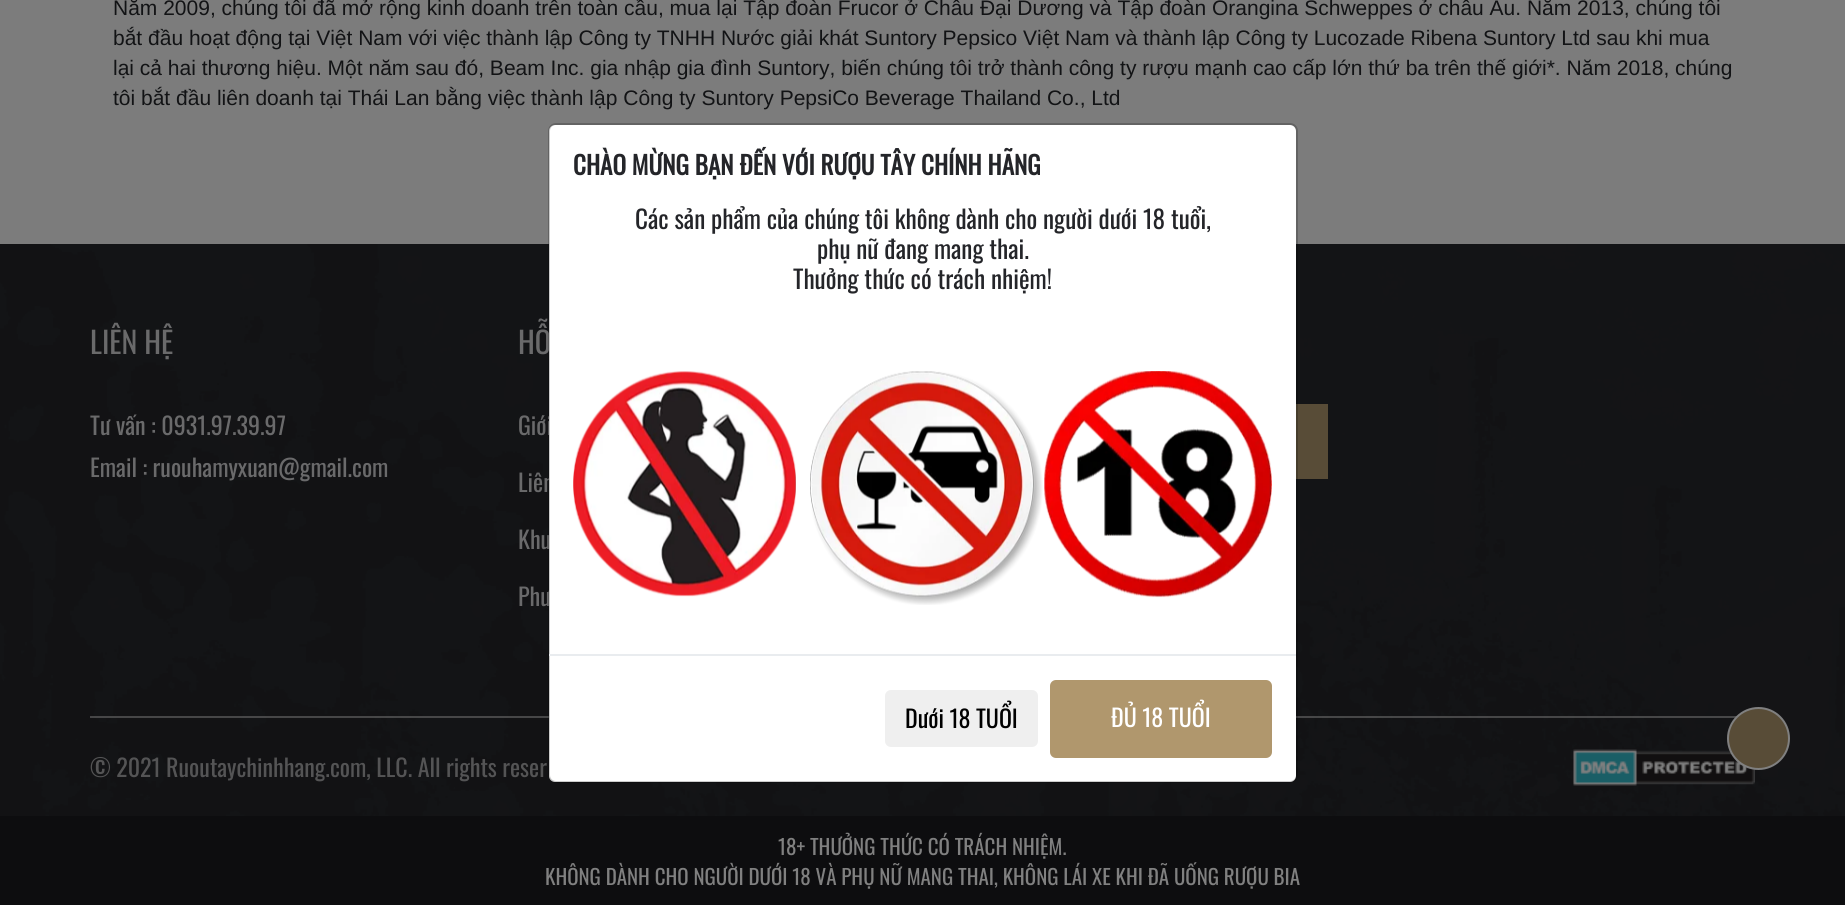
#include <cairo.h>
#include <math.h>
#include <stddef.h>


static void rgb(cairo_t *cr, int r, int g, int b)
{
	cairo_set_source_rgb(cr, r / 255.0, g / 255.0, b / 255.0);
}

static void face(cairo_t *cr, const char *family, double size, int italic, int bold)
{
	cairo_select_font_face(cr, family, italic ? CAIRO_FONT_SLANT_ITALIC : CAIRO_FONT_SLANT_NORMAL,
		bold ? CAIRO_FONT_WEIGHT_BOLD : CAIRO_FONT_WEIGHT_NORMAL);
	cairo_set_font_size(cr, size);
}

static void label(cairo_t *cr, double x, double y, const char *s)
{
	cairo_move_to(cr, x, y);
	cairo_show_text(cr, s);
}

static void rect(cairo_t *cr, double x, double y, double w, double h)
{
	cairo_rectangle(cr, x, y, w, h);
	cairo_fill(cr);
}

static void rrect(cairo_t *cr, double x, double y, double w, double h, double r)
{
	cairo_new_sub_path(cr);
	cairo_arc(cr, x + w - r, y + h - r, r, 0, M_PI / 2);
	cairo_arc(cr, x + r, y + h - r, r, M_PI / 2, M_PI);
	cairo_arc(cr, x + r, y + r, r, M_PI, 1.5 * M_PI);
	cairo_arc(cr, x + w - r, y + r, r, 1.5 * M_PI, 2 * M_PI);
	cairo_close_path(cr);
}

static void image(cairo_t *cr, const char *path, double x, double y, double w, double h)
{
	cairo_surface_t *image = cairo_image_surface_create_from_png(path);
	cairo_save(cr);
	cairo_set_source_surface(cr, image, x, y);
	cairo_rectangle(cr, x, y, w, h);
	cairo_fill(cr);
	cairo_restore(cr);
	cairo_surface_destroy(image);
}

static void draw(cairo_t *cr) {
	rgb(cr, 124, 124, 124);
	cairo_paint(cr);
	face(cr, "Liberation Sans", 21, 0, 0);
	rgb(cr, 18, 19, 21);
	label(cr, 113, 15, "Năm 2009, chúng tôi đã mở rộng kinh doanh trên toàn cầu, mua lại Tập đoàn Frucor ở Châu Đại Dương và Tập đoàn Orangina Schweppes ở châu Âu. Năm 2013, chúng tôi");
	label(cr, 113, 45, "bắt đầu hoạt động tại Việt Nam với việc thành lập Công ty TNHH Nước giải khát Suntory Pepsico Việt Nam và thành lập Công ty Lucozade Ribena Suntory Ltd sau khi mua");
	label(cr, 113, 75, "lại cả hai thương hiệu. Một năm sau đó, Beam Inc. gia nhập gia đình Suntory, biến chúng tôi trở thành công ty rượu mạnh cao cấp lớn thứ ba trên thế giới*. Năm 2018, chúng");
	label(cr, 113, 105, "tôi bắt đầu liên doanh tại Thái Lan bằng việc thành lập Công ty Suntory PepsiCo Beverage Thailand Co., Ltd");
	image(cr, "image0.png", 0, 244, 1845, 572);
	face(cr, "Oswald", 30, 0, 0);
	rgb(cr, 106, 106, 107);
	label(cr, 90, 354, "LIÊN HỆ");
	face(cr, "Oswald", 24, 0, 0);
	label(cr, 90, 435, "Tư vấn : 0931.97.39.97");
	label(cr, 90, 477, "Email : ruouhamyxuan@gmail.com");
	face(cr, "Oswald", 30, 0, 0);
	label(cr, 518, 354, "HỖ");
	face(cr, "Oswald", 24, 0, 0);
	label(cr, 518, 435, "Giới");
	label(cr, 518, 492, "Liên");
	label(cr, 518, 549, "Khu");
	label(cr, 518, 606, "Phư");
	rgb(cr, 88, 76, 55);
	rect(cr, 1296, 404, 32, 75);
	cairo_set_source_rgba(cr, 0.412, 0.412, 0.412, 0.6);
	rect(cr, 90, 716, 1647, 2);
	rgb(cr, 84, 84, 85);
	label(cr, 90, 777, "© 2021 Ruoutaychinhhang.com, LLC. All rights reser");
	image(cr, "image1.png", 1573, 749, 182, 37);
	rgb(cr, 13, 13, 15);
	rect(cr, 0, 816, 1845, 89);
	face(cr, "Oswald", 21, 0, 0);
	rgb(cr, 128, 128, 128);
	label(cr, 778, 855, "18+ THƯỞNG THỨC CÓ TRÁCH NHIỆM.");
	label(cr, 545, 885, "KHÔNG DÀNH CHO NGƯỜI DƯỚI 18 VÀ PHỤ NỮ MANG THAI, KHÔNG LÁI XE KHI ĐÃ UỐNG RƯỢU BIA");
	rgb(cr, 255, 255, 255);
	rrect(cr, 549, 125, 747, 657, 6);
	cairo_fill(cr);
	rrect(cr, 549, 124, 748, 658, 7);
	cairo_set_source_rgba(cr, 0, 0, 0, 0.2);
	cairo_stroke(cr);
	face(cr, "Oswald", 25.2, 0, 1);
	rgb(cr, 36, 37, 41);
	label(cr, 573, 175, "CHÀO MỪNG BẠN ĐẾN VỚI RƯỢU TÂY CHÍNH HÃNG");
	face(cr, "Oswald", 25.2, 0, 0);
	label(cr, 635, 229, "Các sản phẩm của chúng tôi không dành cho người dưới 18 tuổi,");
	label(cr, 817, 259, "phụ nữ đang mang thai.");
	label(cr, 793, 289, "Thưởng thức có trách nhiệm!");
	image(cr, "image2.png", 573, 371, 699, 234);
	rgb(cr, 233, 236, 239);
	rect(cr, 549, 654, 747, 2);
	rgb(cr, 239, 239, 239);
	rrect(cr, 885, 690, 153, 57, 6);
	cairo_fill(cr);
	face(cr, "Oswald", 24, 0, 0);
	rgb(cr, 0, 0, 0);
	label(cr, 905, 728, "Dưới 18 TUỔI");
	rgb(cr, 176, 151, 109);
	rrect(cr, 1051, 681, 220, 76, 5);
	cairo_fill_preserve(cr);
	cairo_stroke(cr);
	rgb(cr, 255, 255, 255);
	label(cr, 1111, 727, "ĐỦ 18 TUỔI");
	rgb(cr, 88, 76, 55);
	cairo_new_path(cr);
	cairo_arc(cr, 1758.5, 738.5, 30.5, 0, 2 * M_PI);
	cairo_fill_preserve(cr);
	rgb(cr, 128, 128, 128);
	cairo_stroke(cr);
}

int main(void) {
	cairo_surface_t *surface = cairo_image_surface_create(CAIRO_FORMAT_RGB24, 1845, 905);
	cairo_t *cr = cairo_create(surface);
	cairo_font_options_t *options = cairo_font_options_create();
	cairo_font_options_set_hint_metrics(options, CAIRO_HINT_METRICS_OFF);
	cairo_font_options_set_hint_style(options, CAIRO_HINT_STYLE_NONE);
	cairo_set_font_options(cr, options);
	cairo_set_miter_limit(cr, 4);
	draw(cr);
	cairo_surface_write_to_png(surface, "render.png");
	cairo_font_options_destroy(options);
	cairo_destroy(cr);
	cairo_surface_destroy(surface);
	return 0;
}
